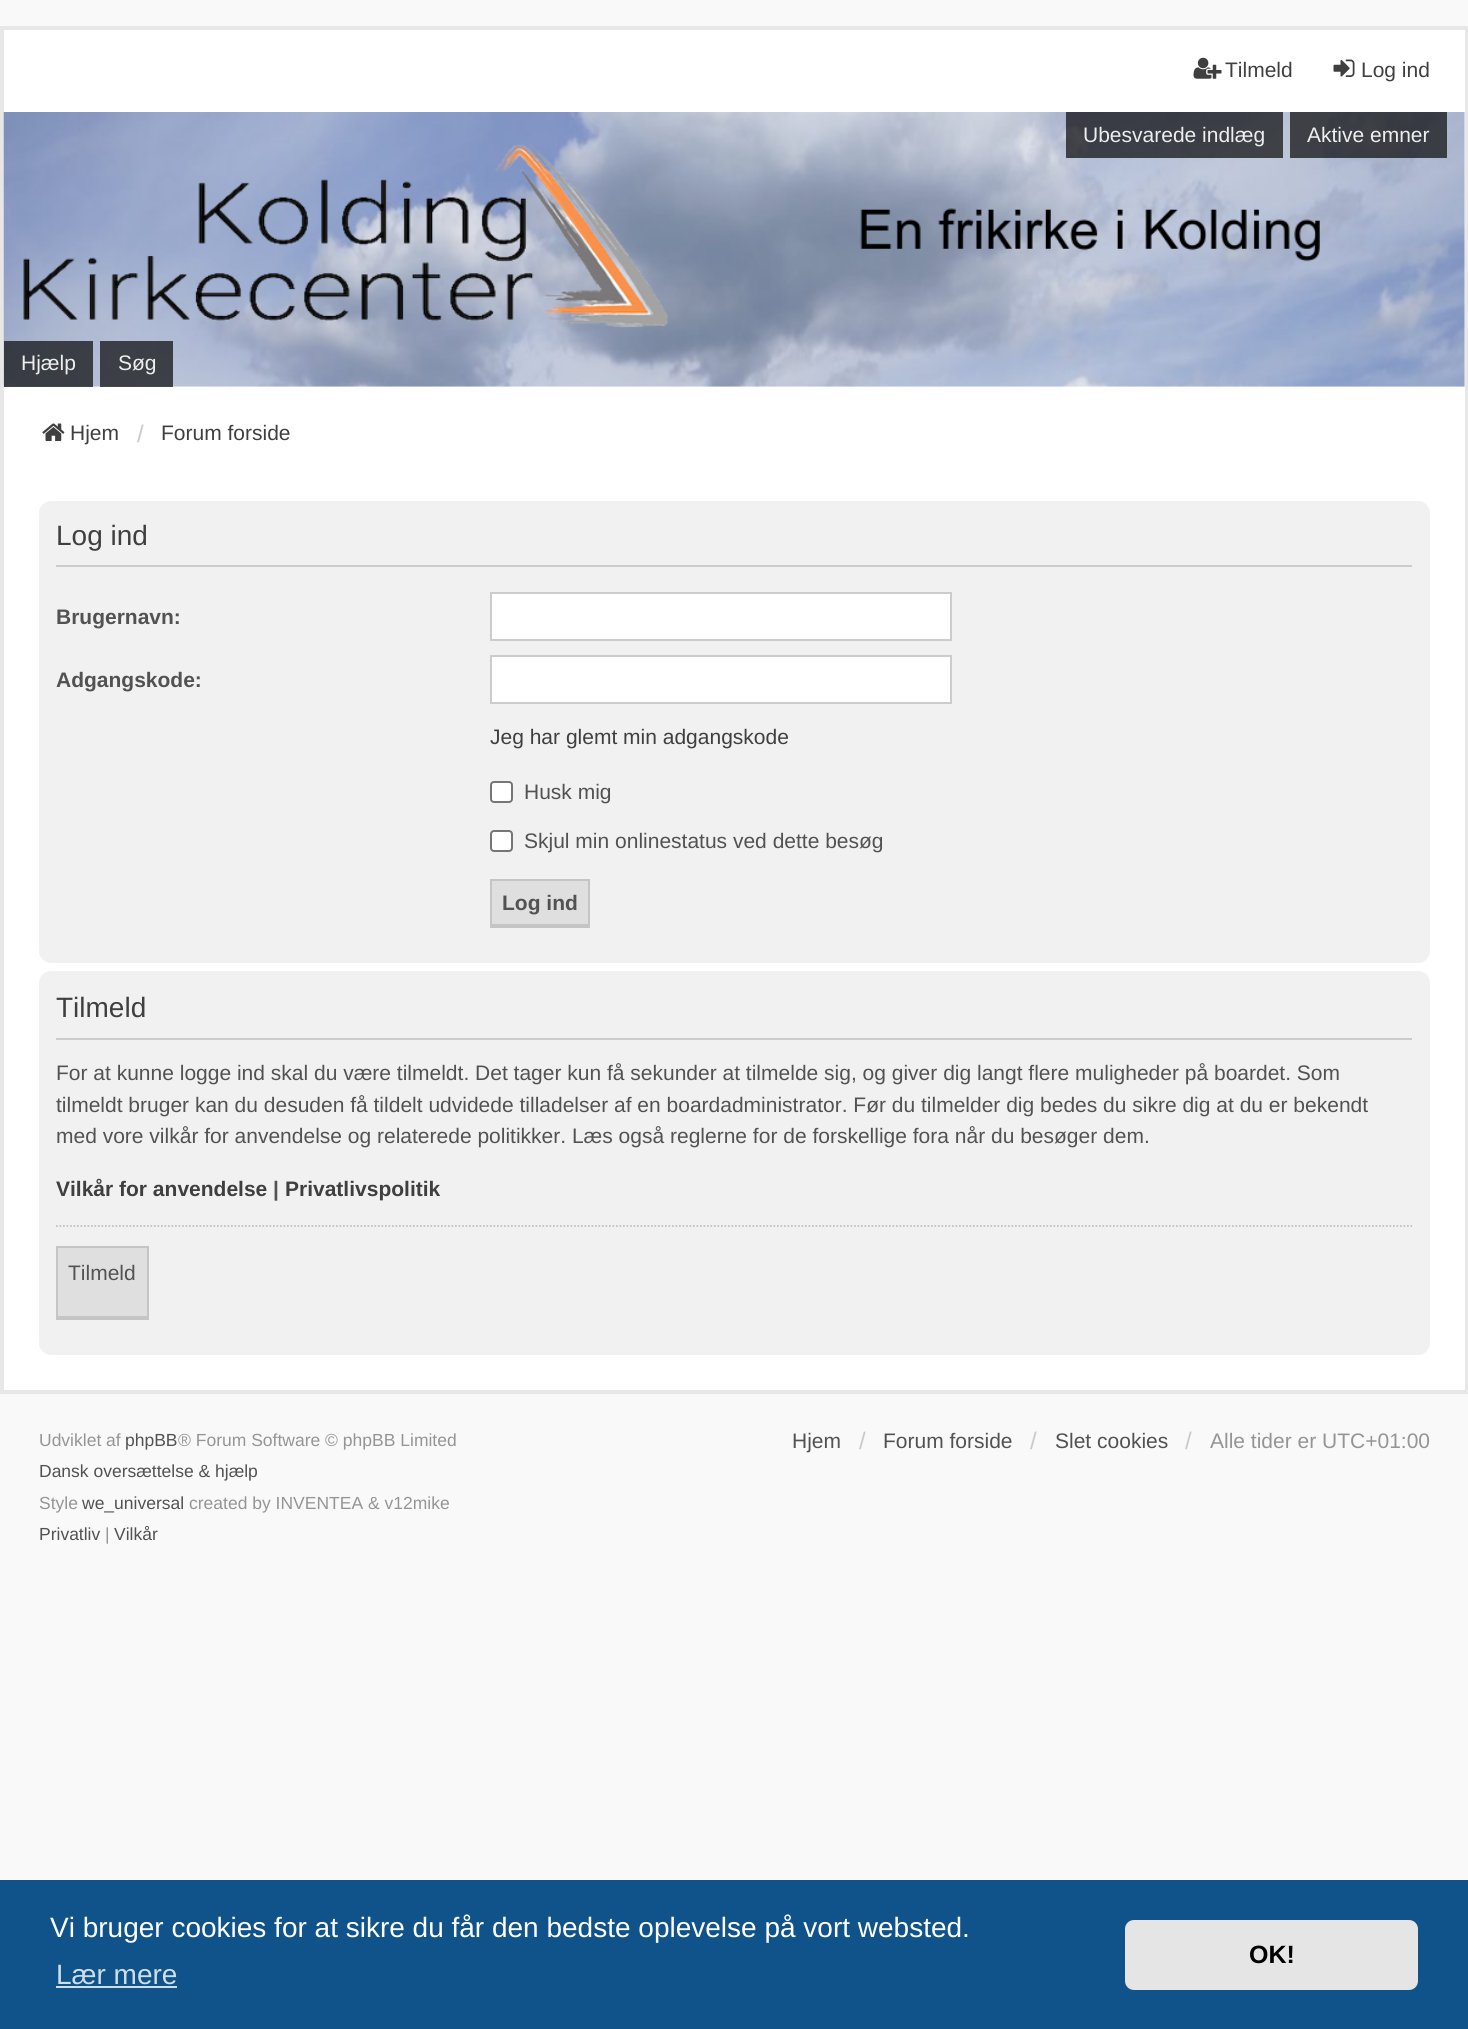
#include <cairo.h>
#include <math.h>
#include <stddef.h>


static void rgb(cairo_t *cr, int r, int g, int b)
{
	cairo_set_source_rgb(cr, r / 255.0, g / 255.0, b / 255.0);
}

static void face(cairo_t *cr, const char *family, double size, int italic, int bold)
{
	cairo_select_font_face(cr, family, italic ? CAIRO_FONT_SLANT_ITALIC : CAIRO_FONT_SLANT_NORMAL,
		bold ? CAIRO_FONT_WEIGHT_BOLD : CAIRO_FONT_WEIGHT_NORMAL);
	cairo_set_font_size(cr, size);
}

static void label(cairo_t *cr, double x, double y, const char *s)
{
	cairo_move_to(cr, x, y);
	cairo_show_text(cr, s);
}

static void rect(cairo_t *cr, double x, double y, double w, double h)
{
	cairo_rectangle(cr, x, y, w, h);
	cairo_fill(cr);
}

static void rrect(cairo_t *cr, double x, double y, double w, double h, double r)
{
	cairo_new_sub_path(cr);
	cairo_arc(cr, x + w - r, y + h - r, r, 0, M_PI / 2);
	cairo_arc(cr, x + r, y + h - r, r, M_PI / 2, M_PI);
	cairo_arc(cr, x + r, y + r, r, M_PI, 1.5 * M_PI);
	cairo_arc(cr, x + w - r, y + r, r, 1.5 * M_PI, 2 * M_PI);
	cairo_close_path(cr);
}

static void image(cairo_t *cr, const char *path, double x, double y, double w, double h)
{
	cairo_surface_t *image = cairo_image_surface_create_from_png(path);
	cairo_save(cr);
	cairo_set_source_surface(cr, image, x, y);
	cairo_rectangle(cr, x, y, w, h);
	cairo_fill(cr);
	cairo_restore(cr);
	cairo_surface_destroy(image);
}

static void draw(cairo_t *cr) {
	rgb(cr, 249, 249, 249);
	cairo_paint(cr);
	rgb(cr, 255, 255, 255);
	rect(cr, 4, 30, 1461, 1360);
	rgb(cr, 231, 231, 231);
	rect(cr, 0, 26, 1468, 4);
	rect(cr, 1465, 26, 3, 1367);
	rect(cr, 0, 26, 4, 361);
	image(cr, "image0.png", 1193, 57, 29, 22);
	face(cr, "Liberation Sans", 21, 0, 0);
	rgb(cr, 63, 63, 63);
	label(cr, 1225, 77, "Tilmeld");
	image(cr, "image1.png", 1333, 59, 22, 18);
	label(cr, 1361, 77, "Log ind");
	image(cr, "image2.png", 3, 112, 1462, 275);
	cairo_set_source_rgba(cr, 0.039, 0.039, 0.039, 0.7);
	rect(cr, 1066, 112, 217, 46);
	rgb(cr, 238, 238, 238);
	label(cr, 1083, 142, "Ubesvarede indlæg");
	cairo_set_source_rgba(cr, 0.039, 0.039, 0.039, 0.7);
	rect(cr, 1290, 112, 157, 46);
	rgb(cr, 238, 238, 238);
	label(cr, 1307, 142, "Aktive emner");
	cairo_set_source_rgba(cr, 0.039, 0.039, 0.039, 0.7);
	rect(cr, 4, 341, 89, 46);
	rgb(cr, 238, 238, 238);
	label(cr, 21, 370, "Hjælp");
	cairo_set_source_rgba(cr, 0.039, 0.039, 0.039, 0.7);
	rect(cr, 100, 341, 73, 46);
	rgb(cr, 238, 238, 238);
	label(cr, 118, 370, "Søg");
	rgb(cr, 231, 231, 231);
	rect(cr, 0, 1390, 1468, 4);
	rect(cr, 0, 387, 4, 1006);
	image(cr, "image3.png", 42, 423, 23, 18);
	rgb(cr, 63, 63, 63);
	label(cr, 70, 440, "Hjem");
	face(cr, "Liberation Sans", 24, 0, 0);
	rgb(cr, 202, 202, 202);
	label(cr, 137, 442, "/");
	face(cr, "Liberation Sans", 21, 0, 0);
	rgb(cr, 63, 63, 63);
	label(cr, 161, 440, "Forum forside");
	rgb(cr, 241, 241, 241);
	rrect(cr, 39, 501, 1391, 462, 12);
	cairo_fill(cr);
	rgb(cr, 204, 204, 204);
	rect(cr, 56, 565, 1356, 2);
	face(cr, "Liberation Sans", 28, 0, 0);
	rgb(cr, 63, 63, 63);
	label(cr, 56, 545, "Log ind");
	face(cr, "Liberation Sans", 21, 0, 1);
	rgb(cr, 82, 82, 82);
	label(cr, 56, 624, "Brugernavn:");
	rgb(cr, 255, 255, 255);
	cairo_rectangle(cr, 491, 593, 460, 47);
	cairo_fill_preserve(cr);
	rgb(cr, 204, 204, 204);
	cairo_stroke(cr);
	rgb(cr, 82, 82, 82);
	label(cr, 56, 687, "Adgangskode:");
	rgb(cr, 255, 255, 255);
	cairo_rectangle(cr, 491, 656, 460, 47);
	cairo_fill_preserve(cr);
	rgb(cr, 204, 204, 204);
	cairo_stroke(cr);
	face(cr, "Liberation Sans", 21, 0, 0);
	rgb(cr, 63, 63, 63);
	label(cr, 490, 744, "Jeg har glemt min adgangskode");
	rgb(cr, 255, 255, 255);
	rrect(cr, 491, 782, 21, 20, 3);
	cairo_fill_preserve(cr);
	rgb(cr, 118, 118, 118);
	cairo_stroke(cr);
	rgb(cr, 82, 82, 82);
	label(cr, 524, 799, "Husk mig");
	rgb(cr, 255, 255, 255);
	rrect(cr, 491, 831, 21, 20, 3);
	cairo_fill_preserve(cr);
	rgb(cr, 118, 118, 118);
	cairo_stroke(cr);
	rgb(cr, 82, 82, 82);
	label(cr, 524, 848, "Skjul min onlinestatus ved dette besøg");
	rgb(cr, 223, 223, 223);
	rect(cr, 492, 881, 96, 43);
	rgb(cr, 197, 197, 197);
	rect(cr, 490, 879, 100, 2);
	rect(cr, 588, 879, 2, 49);
	rect(cr, 490, 924, 100, 4);
	rect(cr, 490, 879, 2, 49);
	face(cr, "Liberation Sans", 21, 0, 1);
	rgb(cr, 82, 82, 82);
	label(cr, 502, 910, "Log ind");
	rgb(cr, 241, 241, 241);
	rrect(cr, 39, 971, 1391, 384, 12);
	cairo_fill(cr);
	rgb(cr, 204, 204, 204);
	rect(cr, 56, 1038, 1356, 2);
	face(cr, "Liberation Sans", 28, 0, 0);
	rgb(cr, 63, 63, 63);
	label(cr, 56, 1017, "Tilmeld");
	face(cr, "Liberation Sans", 21, 0, 0);
	rgb(cr, 82, 82, 82);
	label(cr, 56, 1080, "For at kunne logge ind skal du være tilmeldt. Det tager kun få sekunder at tilmelde sig, og giver dig langt flere muligheder på boardet. Som");
	label(cr, 56, 1112, "tilmeldt bruger kan du desuden få tildelt udvidede tilladelser af en boardadministrator. Før du tilmelder dig bedes du sikre dig at du er bekendt");
	label(cr, 56, 1143, "med vore vilkår for anvendelse og relaterede politikker. Læs også reglerne for de forskellige fora når du besøger dem.");
	face(cr, "Liberation Sans", 21, 0, 1);
	rgb(cr, 63, 63, 63);
	label(cr, 56, 1196, "Vilkår for anvendelse");
	rgb(cr, 82, 82, 82);
	label(cr, 273, 1196, "|");
	rgb(cr, 63, 63, 63);
	label(cr, 285, 1196, "Privatlivspolitik");
	cairo_new_path(cr);
	cairo_move_to(cr, 56, 1226);
	cairo_line_to(cr, 1412, 1226);
	rgb(cr, 194, 194, 194);
	cairo_set_line_width(cr, 1.8);
	cairo_set_dash(cr, (double[]){1.75, 1.75}, 2, 0);
	cairo_stroke(cr);
	rgb(cr, 223, 223, 223);
	rect(cr, 58, 1248, 89, 68);
	rgb(cr, 197, 197, 197);
	rect(cr, 56, 1246, 93, 2);
	rect(cr, 147, 1246, 2, 74);
	rect(cr, 56, 1316, 93, 4);
	rect(cr, 56, 1246, 2, 74);
	face(cr, "Liberation Sans", 21, 0, 0);
	rgb(cr, 82, 82, 82);
	label(cr, 68, 1280, "Tilmeld");
	face(cr, "Liberation Sans", 17.5, 0, 0);
	rgb(cr, 149, 149, 149);
	label(cr, 39, 1446, "Udviklet af");
	rgb(cr, 82, 82, 82);
	label(cr, 125, 1446, "phpBB");
	rgb(cr, 149, 149, 149);
	label(cr, 178, 1446, "® Forum Software © phpBB Limited");
	rgb(cr, 82, 82, 82);
	label(cr, 39, 1477, "Dansk oversættelse & hjælp");
	rgb(cr, 149, 149, 149);
	label(cr, 39, 1509, "Style");
	rgb(cr, 82, 82, 82);
	label(cr, 82, 1509, "we_universal");
	rgb(cr, 149, 149, 149);
	label(cr, 189, 1509, "created by INVENTEA & v12mike");
	rgb(cr, 82, 82, 82);
	label(cr, 39, 1540, "Privatliv");
	rgb(cr, 149, 149, 149);
	label(cr, 105, 1540, "|");
	rgb(cr, 82, 82, 82);
	label(cr, 114, 1540, "Vilkår");
	face(cr, "Liberation Sans", 21, 0, 0);
	label(cr, 792, 1448, "Hjem");
	face(cr, "Liberation Sans", 24, 0, 0);
	rgb(cr, 202, 202, 202);
	label(cr, 859, 1449, "/");
	face(cr, "Liberation Sans", 21, 0, 0);
	rgb(cr, 82, 82, 82);
	label(cr, 883, 1448, "Forum forside");
	face(cr, "Liberation Sans", 24, 0, 0);
	rgb(cr, 202, 202, 202);
	label(cr, 1030, 1449, "/");
	face(cr, "Liberation Sans", 21, 0, 0);
	rgb(cr, 82, 82, 82);
	label(cr, 1055, 1448, "Slet cookies");
	face(cr, "Liberation Sans", 24, 0, 0);
	rgb(cr, 202, 202, 202);
	label(cr, 1185, 1449, "/");
	face(cr, "Liberation Sans", 21, 0, 0);
	rgb(cr, 149, 149, 149);
	label(cr, 1210, 1448, "Alle tider er UTC+01:00");
	rgb(cr, 15, 83, 138);
	rect(cr, 0, 1880, 1468, 149);
	face(cr, "Liberation Sans", 28, 0, 0);
	rgb(cr, 255, 255, 255);
	label(cr, 50, 1937, "Vi bruger cookies for at sikre du får den bedste oplevelse på vort websted.");
	rgb(cr, 207, 221, 232);
	label(cr, 56, 1984, "Lær mere");
	rect(cr, 56, 1986, 121, 2);
	rgb(cr, 229, 229, 229);
	rrect(cr, 1125, 1920, 293, 70, 9);
	cairo_fill(cr);
	face(cr, "Liberation Sans", 25, 0, 1);
	rgb(cr, 0, 0, 0);
	label(cr, 1249, 1963, "OK!");
}

int main(void) {
	cairo_surface_t *surface = cairo_image_surface_create(CAIRO_FORMAT_RGB24, 1468, 2029);
	cairo_t *cr = cairo_create(surface);
	cairo_font_options_t *options = cairo_font_options_create();
	cairo_font_options_set_hint_metrics(options, CAIRO_HINT_METRICS_OFF);
	cairo_font_options_set_hint_style(options, CAIRO_HINT_STYLE_NONE);
	cairo_set_font_options(cr, options);
	cairo_set_miter_limit(cr, 4);
	draw(cr);
	cairo_surface_write_to_png(surface, "render.png");
	cairo_font_options_destroy(options);
	cairo_destroy(cr);
	cairo_surface_destroy(surface);
	return 0;
}
